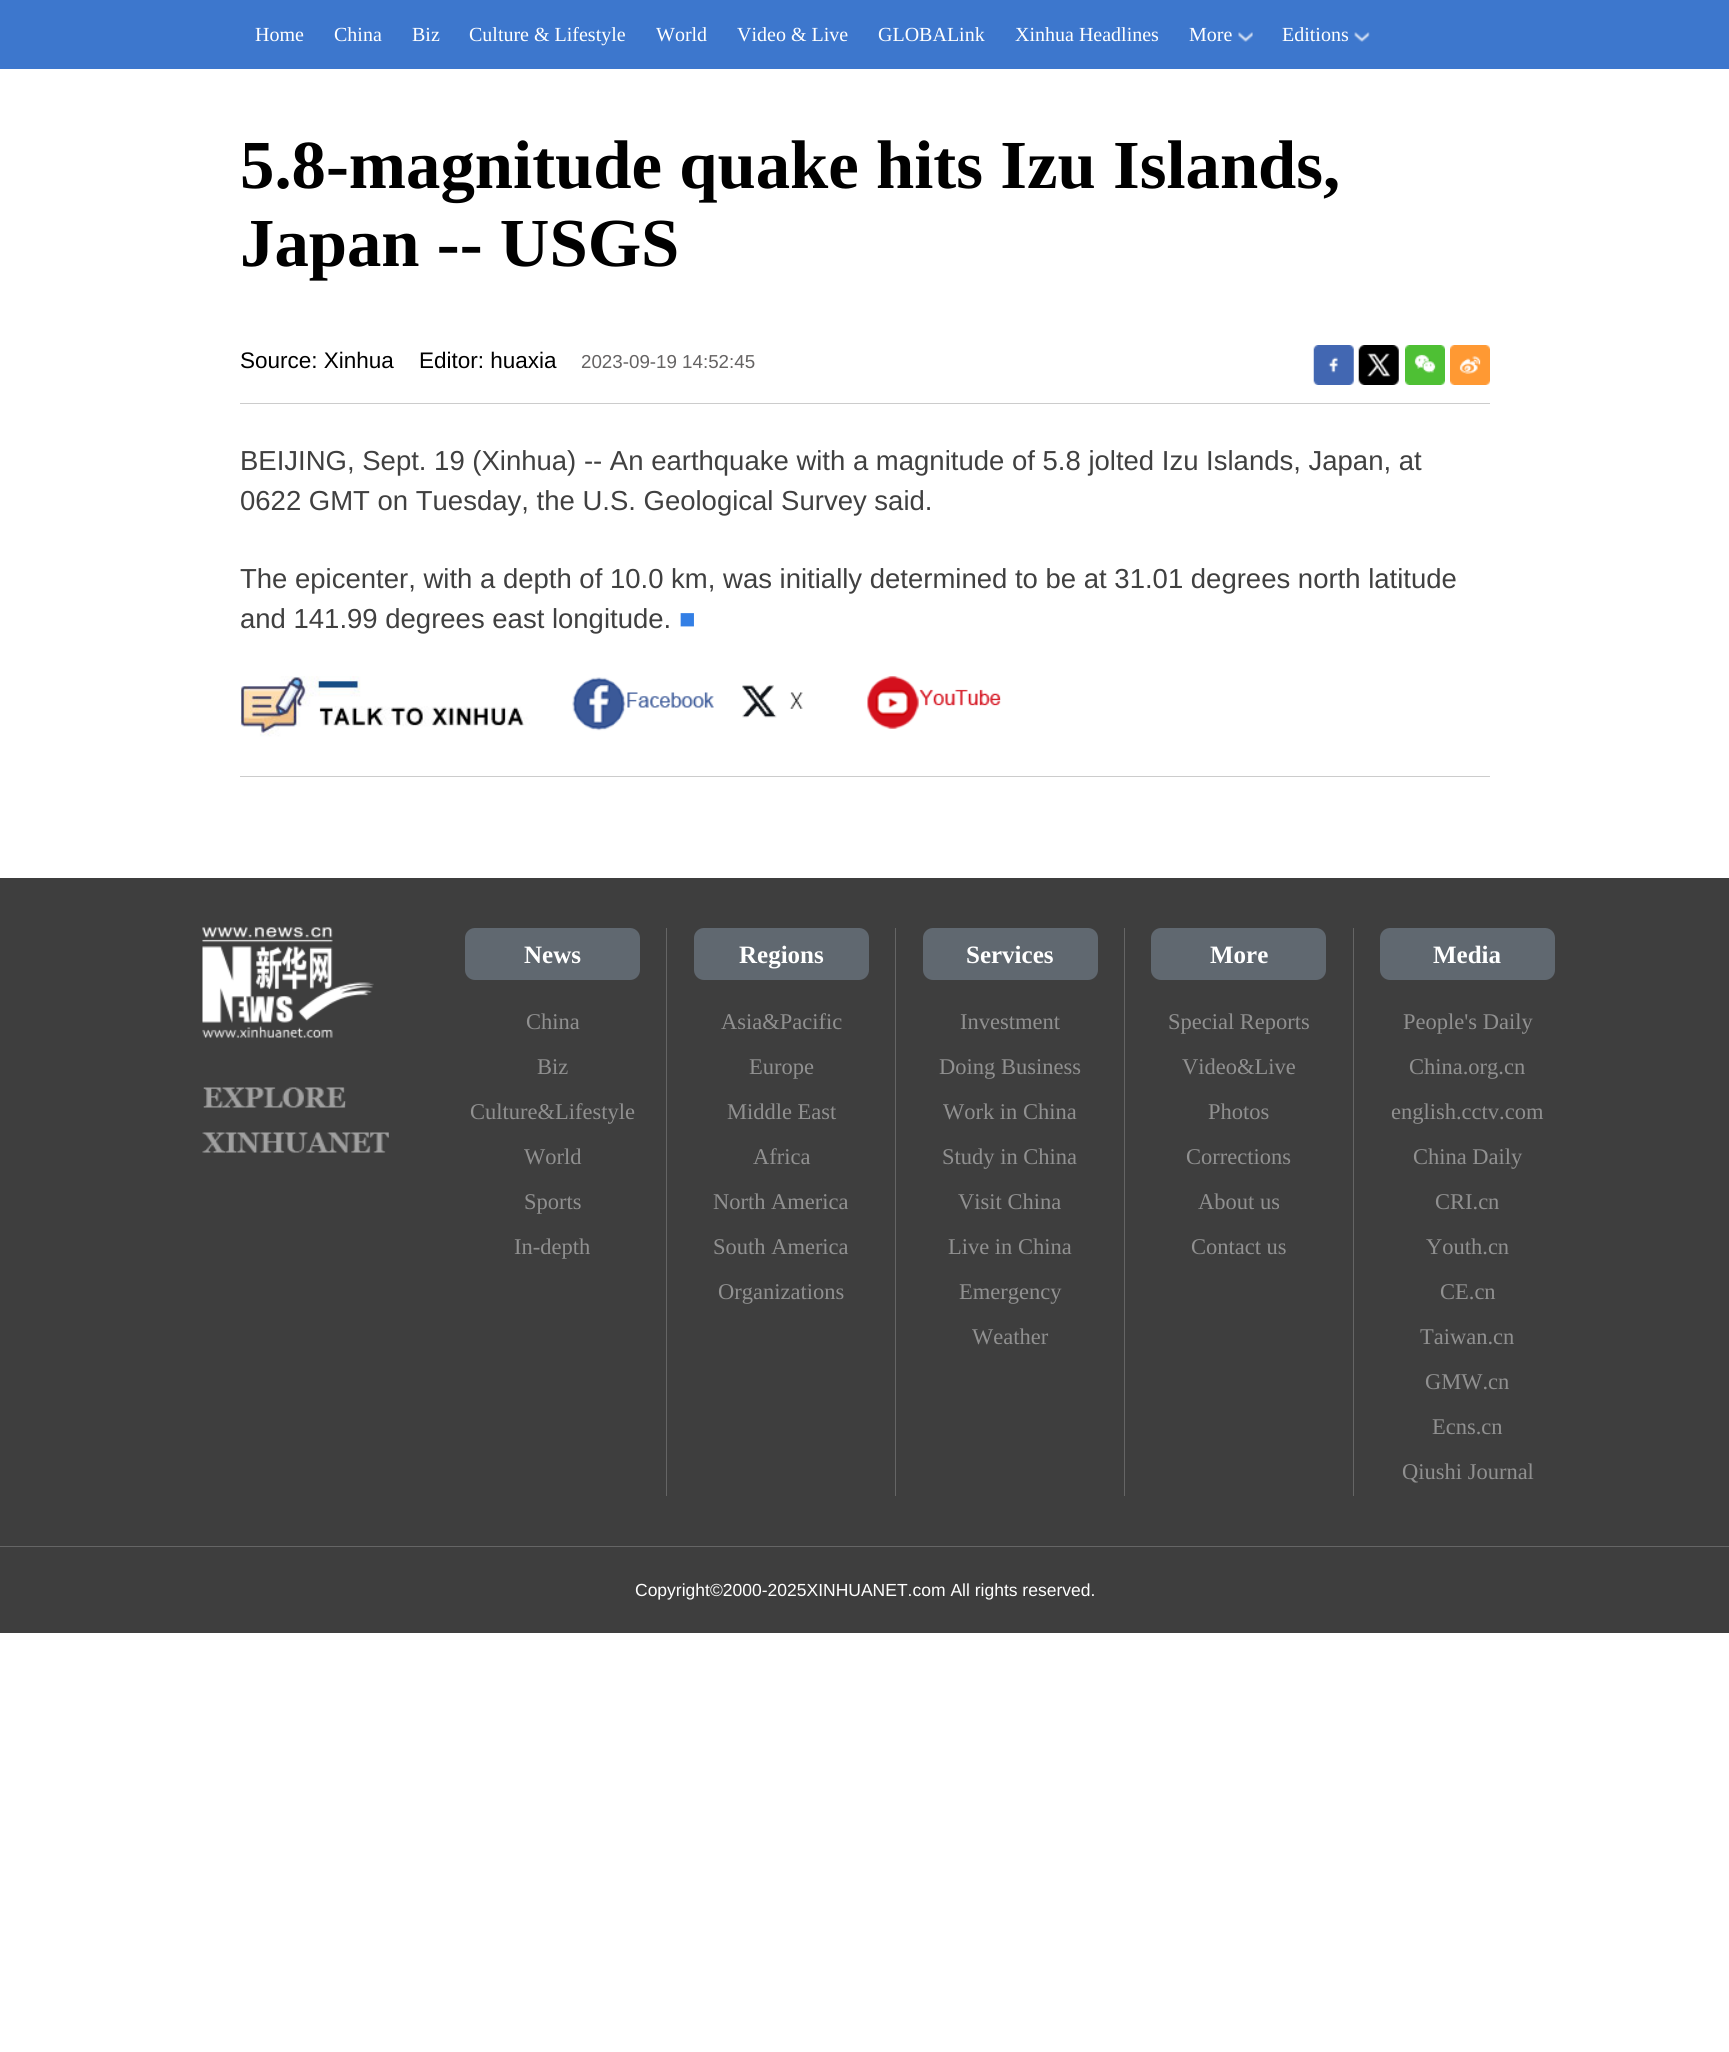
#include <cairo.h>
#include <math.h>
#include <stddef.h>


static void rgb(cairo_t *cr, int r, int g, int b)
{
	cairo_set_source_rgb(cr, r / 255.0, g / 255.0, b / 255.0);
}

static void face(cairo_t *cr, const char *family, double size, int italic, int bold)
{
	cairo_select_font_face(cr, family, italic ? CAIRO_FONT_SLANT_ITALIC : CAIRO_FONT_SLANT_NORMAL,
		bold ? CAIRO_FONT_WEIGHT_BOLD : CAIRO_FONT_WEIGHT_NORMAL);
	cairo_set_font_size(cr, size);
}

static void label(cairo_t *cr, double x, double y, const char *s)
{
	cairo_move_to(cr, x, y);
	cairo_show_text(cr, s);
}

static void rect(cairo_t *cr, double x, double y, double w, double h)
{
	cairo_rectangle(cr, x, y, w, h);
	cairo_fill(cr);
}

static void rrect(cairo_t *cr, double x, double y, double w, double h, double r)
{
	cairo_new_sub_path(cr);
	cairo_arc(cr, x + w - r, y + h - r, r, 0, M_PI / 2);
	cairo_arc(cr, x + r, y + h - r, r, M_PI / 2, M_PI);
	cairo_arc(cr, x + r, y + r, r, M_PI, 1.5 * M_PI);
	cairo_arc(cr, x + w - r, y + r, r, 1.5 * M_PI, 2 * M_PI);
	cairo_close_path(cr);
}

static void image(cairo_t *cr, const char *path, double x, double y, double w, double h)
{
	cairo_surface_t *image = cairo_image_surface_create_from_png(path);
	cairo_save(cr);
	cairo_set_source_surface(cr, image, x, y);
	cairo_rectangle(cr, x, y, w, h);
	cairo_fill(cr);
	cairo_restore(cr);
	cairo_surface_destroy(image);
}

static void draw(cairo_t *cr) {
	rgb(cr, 255, 255, 255);
	cairo_paint(cr);
	rgb(cr, 61, 119, 205);
	rect(cr, 0, 0, 1729, 69);
	face(cr, "Liberation Serif", 20, 0, 0);
	rgb(cr, 255, 255, 255);
	label(cr, 255, 41, "Home");
	label(cr, 334, 41, "China");
	label(cr, 412, 41, "Biz");
	label(cr, 469, 41, "Culture & Lifestyle");
	label(cr, 656, 41, "World");
	label(cr, 737, 41, "Video & Live");
	label(cr, 878, 41, "GLOBALink");
	label(cr, 1015, 41, "Xinhua Headlines");
	label(cr, 1189, 41, "More");
	image(cr, "image0.png", 1238, 32, 15, 10);
	label(cr, 1282, 41, "Editions");
	image(cr, "image1.png", 1354, 32, 16, 10);
	face(cr, "Liberation Serif", 68.75, 0, 1);
	rgb(cr, 0, 0, 0);
	label(cr, 240, 188, "5.8-magnitude quake hits Izu Islands,");
	label(cr, 240, 266, "Japan -- USGS");
	rgb(cr, 204, 204, 204);
	rect(cr, 240, 403, 1250, 1);
	face(cr, "Liberation Sans", 22.5, 0, 0);
	rgb(cr, 0, 0, 0);
	label(cr, 240, 368, "Source: Xinhua");
	label(cr, 419, 368, "Editor: huaxia");
	face(cr, "Liberation Sans", 18.75, 0, 0);
	rgb(cr, 101, 99, 99);
	label(cr, 581, 368, "2023-09-19 14:52:45");
	image(cr, "image2.png", 1313, 345, 41, 40);
	image(cr, "image3.png", 1358, 345, 41, 40);
	image(cr, "image4.png", 1405, 345, 40, 40);
	image(cr, "image5.png", 1450, 345, 40, 40);
	rgb(cr, 204, 204, 204);
	rect(cr, 240, 776, 1250, 1);
	face(cr, "Liberation Sans", 27.5, 0, 0);
	rgb(cr, 64, 64, 64);
	label(cr, 240, 470, "BEIJING, Sept. 19 (Xinhua) -- An earthquake with a magnitude of 5.8 jolted Izu Islands, Japan, at");
	label(cr, 240, 510, "0622 GMT on Tuesday, the U.S. Geological Survey said.");
	label(cr, 240, 588, "The epicenter, with a depth of 10.0 km, was initially determined to be at 31.01 degrees north latitude");
	label(cr, 240, 628, "and 141.99 degrees east longitude.");
	rgb(cr, 51, 127, 229);
	label(cr, 679, 628, "■");
	image(cr, "image6.png", 240, 676, 290, 61);
	image(cr, "image7.png", 572, 677, 142, 54);
	image(cr, "image8.png", 742, 685, 61, 33);
	image(cr, "image9.png", 867, 676, 134, 53);
	rgb(cr, 62, 62, 62);
	rect(cr, 0, 878, 1729, 755);
	image(cr, "image10.png", 202, 927, 172, 111);
	image(cr, "image11.png", 202, 1087, 187, 66);
	rgb(cr, 101, 101, 101);
	rect(cr, 666, 928, 1, 568);
	rgb(cr, 96, 104, 112);
	rrect(cr, 465, 928, 175, 52, 10);
	cairo_fill(cr);
	face(cr, "Liberation Serif", 25, 0, 1);
	rgb(cr, 255, 255, 255);
	label(cr, 524, 963, "News");
	face(cr, "Liberation Serif", 22.5, 0, 0);
	rgb(cr, 144, 144, 144);
	label(cr, 526, 1029, "China");
	label(cr, 537, 1074, "Biz");
	label(cr, 470, 1119, "Culture&Lifestyle");
	label(cr, 524, 1164, "World");
	label(cr, 524, 1209, "Sports");
	label(cr, 514, 1254, "In-depth");
	rgb(cr, 101, 101, 101);
	rect(cr, 895, 928, 1, 568);
	rgb(cr, 96, 104, 112);
	rrect(cr, 694, 928, 175, 52, 10);
	cairo_fill(cr);
	face(cr, "Liberation Serif", 25, 0, 1);
	rgb(cr, 255, 255, 255);
	label(cr, 739, 963, "Regions");
	face(cr, "Liberation Serif", 22.5, 0, 0);
	rgb(cr, 144, 144, 144);
	label(cr, 721, 1029, "Asia&Pacific");
	label(cr, 749, 1074, "Europe");
	label(cr, 727, 1119, "Middle East");
	label(cr, 753, 1164, "Africa");
	label(cr, 713, 1209, "North America");
	label(cr, 713, 1254, "South America");
	label(cr, 718, 1299, "Organizations");
	rgb(cr, 101, 101, 101);
	rect(cr, 1124, 928, 1, 568);
	rgb(cr, 96, 104, 112);
	rrect(cr, 923, 928, 175, 52, 10);
	cairo_fill(cr);
	face(cr, "Liberation Serif", 25, 0, 1);
	rgb(cr, 255, 255, 255);
	label(cr, 966, 963, "Services");
	face(cr, "Liberation Serif", 22.5, 0, 0);
	rgb(cr, 144, 144, 144);
	label(cr, 960, 1029, "Investment");
	label(cr, 939, 1074, "Doing Business");
	label(cr, 943, 1119, "Work in China");
	label(cr, 942, 1164, "Study in China");
	label(cr, 958, 1209, "Visit China");
	label(cr, 948, 1254, "Live in China");
	label(cr, 959, 1299, "Emergency");
	label(cr, 972, 1344, "Weather");
	rgb(cr, 101, 101, 101);
	rect(cr, 1353, 928, 1, 568);
	rgb(cr, 96, 104, 112);
	rrect(cr, 1151, 928, 175, 52, 10);
	cairo_fill(cr);
	face(cr, "Liberation Serif", 25, 0, 1);
	rgb(cr, 255, 255, 255);
	label(cr, 1210, 963, "More");
	face(cr, "Liberation Serif", 22.5, 0, 0);
	rgb(cr, 144, 144, 144);
	label(cr, 1168, 1029, "Special Reports");
	label(cr, 1182, 1074, "Video&Live");
	label(cr, 1208, 1119, "Photos");
	label(cr, 1186, 1164, "Corrections");
	label(cr, 1198, 1209, "About us");
	label(cr, 1191, 1254, "Contact us");
	rgb(cr, 96, 104, 112);
	rrect(cr, 1380, 928, 175, 52, 10);
	cairo_fill(cr);
	face(cr, "Liberation Serif", 25, 0, 1);
	rgb(cr, 255, 255, 255);
	label(cr, 1433, 963, "Media");
	face(cr, "Liberation Serif", 22.5, 0, 0);
	rgb(cr, 144, 144, 144);
	label(cr, 1403, 1029, "People's Daily");
	label(cr, 1409, 1074, "China.org.cn");
	label(cr, 1391, 1119, "english.cctv.com");
	label(cr, 1413, 1164, "China Daily");
	label(cr, 1435, 1209, "CRI.cn");
	label(cr, 1426, 1254, "Youth.cn");
	label(cr, 1440, 1299, "CE.cn");
	label(cr, 1420, 1344, "Taiwan.cn");
	label(cr, 1425, 1389, "GMW.cn");
	label(cr, 1432, 1434, "Ecns.cn");
	label(cr, 1402, 1479, "Qiushi Journal");
	rgb(cr, 101, 101, 101);
	rect(cr, 0, 1546, 1729, 1);
	face(cr, "Liberation Sans", 17.5, 0, 0);
	rgb(cr, 255, 255, 255);
	label(cr, 635, 1596, "Copyright©2000-2025XINHUANET.com All rights reserved.");
}

int main(void) {
	cairo_surface_t *surface = cairo_image_surface_create(CAIRO_FORMAT_RGB24, 1729, 2052);
	cairo_t *cr = cairo_create(surface);
	cairo_font_options_t *options = cairo_font_options_create();
	cairo_font_options_set_hint_metrics(options, CAIRO_HINT_METRICS_OFF);
	cairo_font_options_set_hint_style(options, CAIRO_HINT_STYLE_NONE);
	cairo_set_font_options(cr, options);
	cairo_set_miter_limit(cr, 4);
	draw(cr);
	cairo_surface_write_to_png(surface, "render.png");
	cairo_font_options_destroy(options);
	cairo_destroy(cr);
	cairo_surface_destroy(surface);
	return 0;
}
